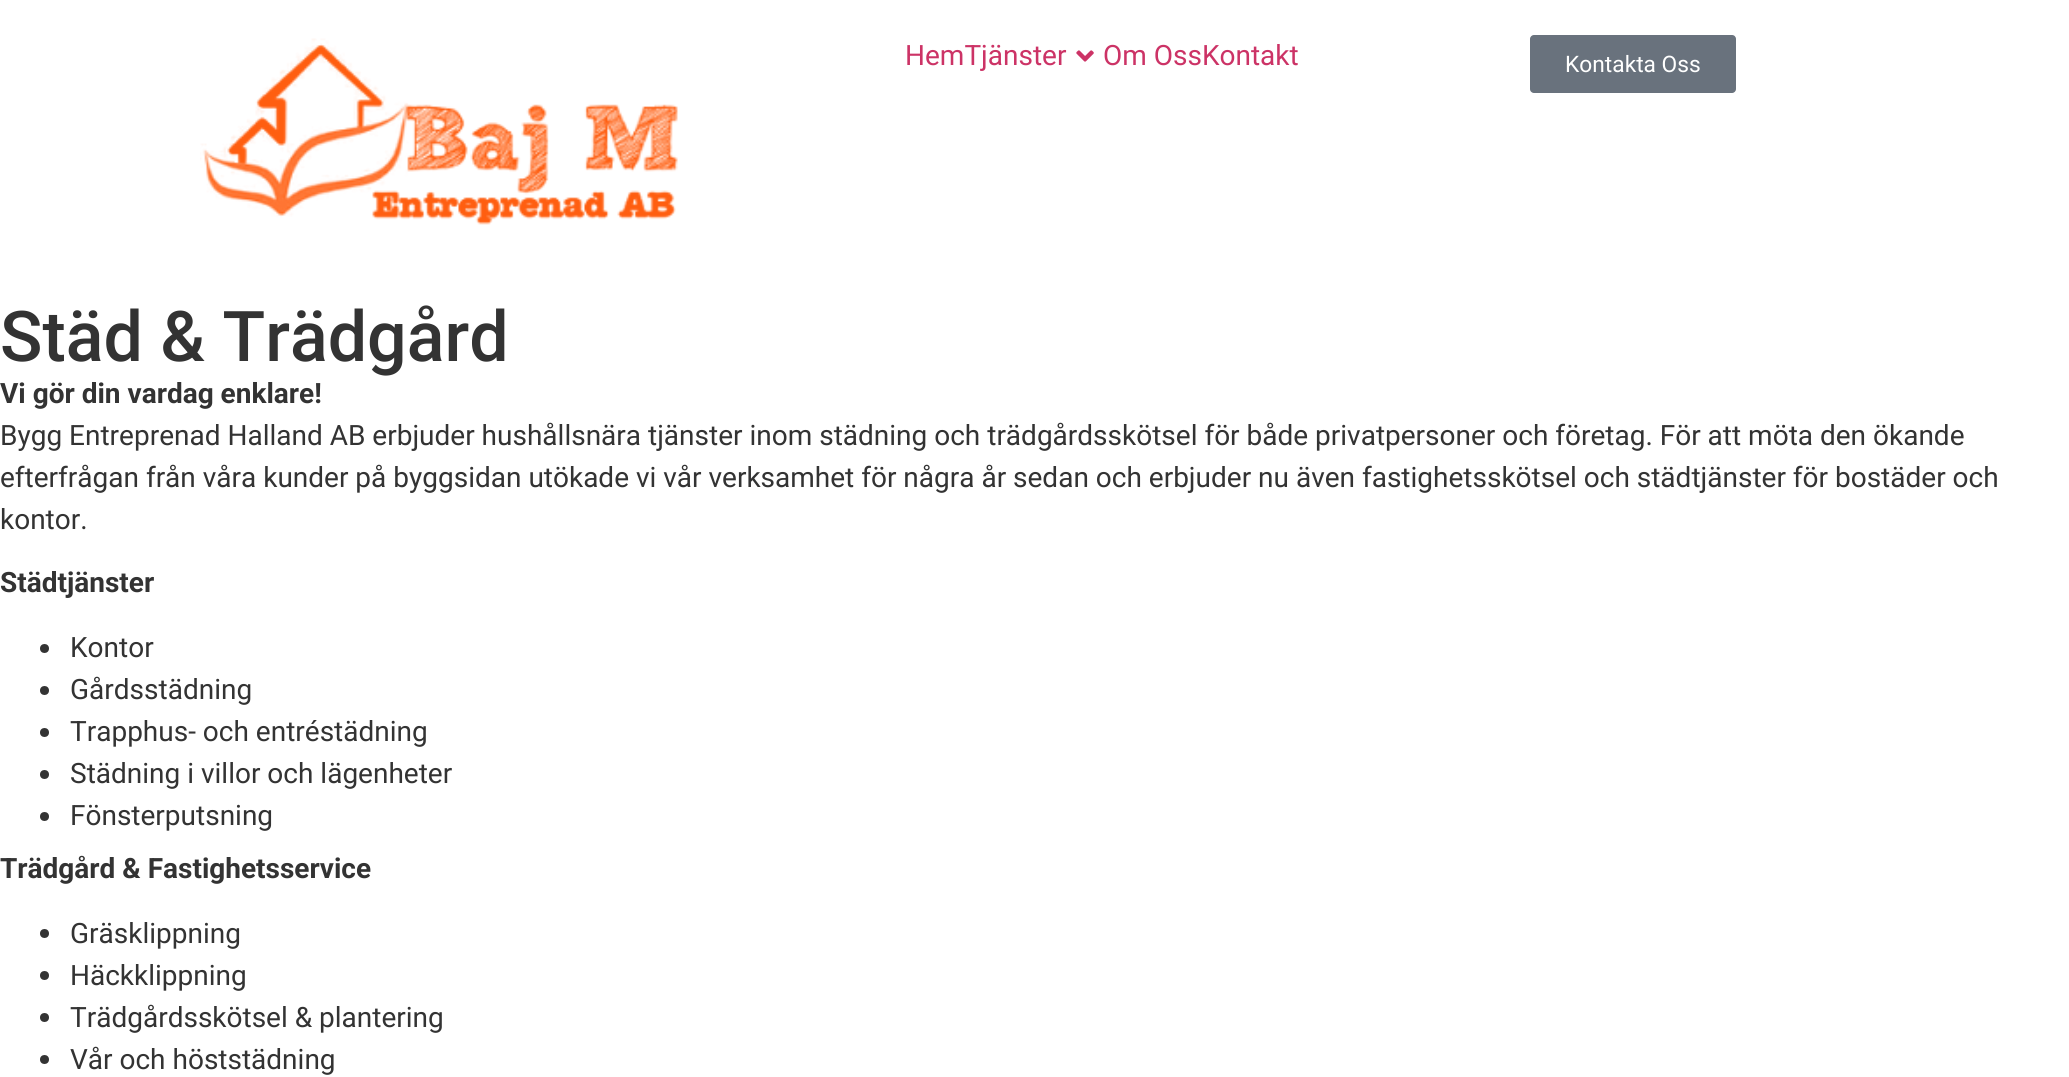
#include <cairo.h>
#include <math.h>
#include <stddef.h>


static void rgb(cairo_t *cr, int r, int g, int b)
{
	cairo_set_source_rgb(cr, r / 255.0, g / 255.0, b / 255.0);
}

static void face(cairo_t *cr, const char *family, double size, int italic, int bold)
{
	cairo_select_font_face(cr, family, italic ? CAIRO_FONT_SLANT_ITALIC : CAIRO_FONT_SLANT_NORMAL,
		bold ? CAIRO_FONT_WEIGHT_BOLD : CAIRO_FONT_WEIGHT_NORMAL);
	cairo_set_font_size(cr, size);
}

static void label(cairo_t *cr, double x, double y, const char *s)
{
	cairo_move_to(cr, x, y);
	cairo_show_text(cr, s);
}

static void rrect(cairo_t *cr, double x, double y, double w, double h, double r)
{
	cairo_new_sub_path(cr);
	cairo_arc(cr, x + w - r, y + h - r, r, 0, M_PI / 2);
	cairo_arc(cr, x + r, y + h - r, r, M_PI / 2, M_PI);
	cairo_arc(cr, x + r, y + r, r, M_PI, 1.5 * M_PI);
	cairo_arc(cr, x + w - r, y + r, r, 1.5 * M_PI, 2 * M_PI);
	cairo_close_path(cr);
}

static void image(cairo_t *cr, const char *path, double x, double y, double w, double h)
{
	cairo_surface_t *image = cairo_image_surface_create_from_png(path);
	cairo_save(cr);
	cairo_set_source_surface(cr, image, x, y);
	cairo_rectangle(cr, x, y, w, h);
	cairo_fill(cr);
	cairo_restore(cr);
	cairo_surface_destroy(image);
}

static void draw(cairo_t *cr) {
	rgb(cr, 255, 255, 255);
	cairo_paint(cr);
	image(cr, "image0.png", 200, 38, 478, 187);
	face(cr, "Roboto", 28, 0, 0);
	rgb(cr, 204, 51, 102);
	label(cr, 905, 65, "HemTjänster");
	image(cr, "image1.png", 1076, 50, 18, 12);
	label(cr, 1103, 65, "Om OssKontakt");
	rgb(cr, 105, 114, 125);
	rrect(cr, 1530, 35, 206, 58, 4);
	cairo_fill(cr);
	face(cr, "Roboto", 22.75, 0, 0);
	rgb(cr, 255, 255, 255);
	label(cr, 1565, 72, "Kontakta Oss");
	face(cr, "Roboto Medium", 70, 0, 0);
	rgb(cr, 51, 51, 51);
	label(cr, 0, 361, "Städ & Trädgård");
	face(cr, "Roboto", 28, 0, 1);
	label(cr, 0, 403, "Vi gör din vardag enklare!");
	face(cr, "Roboto", 28, 0, 0);
	label(cr, 0, 445, "Bygg Entreprenad Halland AB erbjuder hushållsnära tjänster inom städning och trädgårdsskötsel för både privatpersoner och företag. För att möta den ökande");
	label(cr, 0, 487, "efterfrågan från våra kunder på byggsidan utökade vi vår verksamhet för några år sedan och erbjuder nu även fastighetsskötsel och städtjänster för bostäder och");
	label(cr, 0, 529, "kontor.");
	face(cr, "Roboto", 28, 0, 1);
	label(cr, 0, 592, "Städtjänster");
	cairo_new_path(cr);
	cairo_arc(cr, 44.5, 648.5, 4.5, 0, 2 * M_PI);
	cairo_fill(cr);
	face(cr, "Roboto", 28, 0, 0);
	label(cr, 70, 657, "Kontor");
	cairo_new_path(cr);
	cairo_arc(cr, 44.5, 690.5, 4.5, 0, 2 * M_PI);
	cairo_fill(cr);
	label(cr, 70, 699, "Gårdsstädning");
	cairo_new_path(cr);
	cairo_arc(cr, 44.5, 732.5, 4.5, 0, 2 * M_PI);
	cairo_fill(cr);
	label(cr, 70, 741, "Trapphus- och entréstädning");
	cairo_new_path(cr);
	cairo_arc(cr, 44.5, 774.5, 4.5, 0, 2 * M_PI);
	cairo_fill(cr);
	label(cr, 70, 783, "Städning i villor och lägenheter");
	cairo_new_path(cr);
	cairo_arc(cr, 44.5, 816.5, 4.5, 0, 2 * M_PI);
	cairo_fill(cr);
	label(cr, 70, 825, "Fönsterputsning");
	face(cr, "Roboto", 28, 0, 1);
	label(cr, 0, 878, "Trädgård & Fastighetsservice");
	cairo_new_path(cr);
	cairo_arc(cr, 44.5, 933.5, 4.5, 0, 2 * M_PI);
	cairo_fill(cr);
	face(cr, "Roboto", 28, 0, 0);
	label(cr, 70, 943, "Gräsklippning");
	cairo_new_path(cr);
	cairo_arc(cr, 44.5, 975.5, 4.5, 0, 2 * M_PI);
	cairo_fill(cr);
	label(cr, 70, 985, "Häckklippning");
	cairo_new_path(cr);
	cairo_arc(cr, 44.5, 1017.5, 4.5, 0, 2 * M_PI);
	cairo_fill(cr);
	label(cr, 70, 1027, "Trädgårdsskötsel & plantering");
	cairo_new_path(cr);
	cairo_arc(cr, 44.5, 1059.5, 4.5, 0, 2 * M_PI);
	cairo_fill(cr);
	label(cr, 70, 1069, "Vår och höststädning");
}

int main(void) {
	cairo_surface_t *surface = cairo_image_surface_create(CAIRO_FORMAT_RGB24, 2069, 1077);
	cairo_t *cr = cairo_create(surface);
	cairo_font_options_t *options = cairo_font_options_create();
	cairo_font_options_set_hint_metrics(options, CAIRO_HINT_METRICS_OFF);
	cairo_font_options_set_hint_style(options, CAIRO_HINT_STYLE_NONE);
	cairo_set_font_options(cr, options);
	cairo_set_miter_limit(cr, 4);
	draw(cr);
	cairo_surface_write_to_png(surface, "render.png");
	cairo_font_options_destroy(options);
	cairo_destroy(cr);
	cairo_surface_destroy(surface);
	return 0;
}
